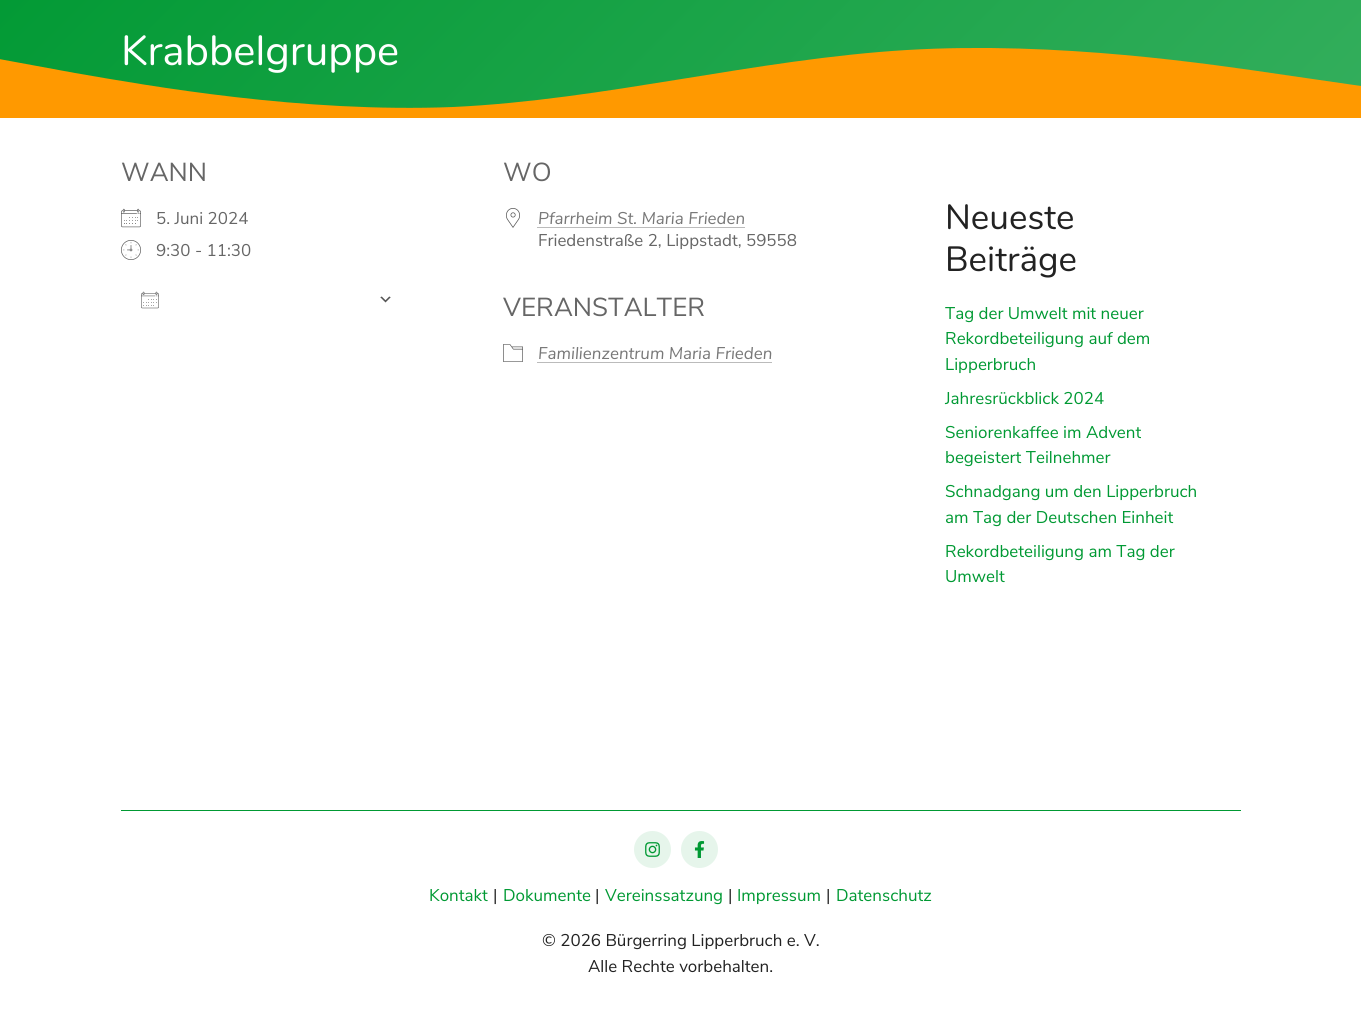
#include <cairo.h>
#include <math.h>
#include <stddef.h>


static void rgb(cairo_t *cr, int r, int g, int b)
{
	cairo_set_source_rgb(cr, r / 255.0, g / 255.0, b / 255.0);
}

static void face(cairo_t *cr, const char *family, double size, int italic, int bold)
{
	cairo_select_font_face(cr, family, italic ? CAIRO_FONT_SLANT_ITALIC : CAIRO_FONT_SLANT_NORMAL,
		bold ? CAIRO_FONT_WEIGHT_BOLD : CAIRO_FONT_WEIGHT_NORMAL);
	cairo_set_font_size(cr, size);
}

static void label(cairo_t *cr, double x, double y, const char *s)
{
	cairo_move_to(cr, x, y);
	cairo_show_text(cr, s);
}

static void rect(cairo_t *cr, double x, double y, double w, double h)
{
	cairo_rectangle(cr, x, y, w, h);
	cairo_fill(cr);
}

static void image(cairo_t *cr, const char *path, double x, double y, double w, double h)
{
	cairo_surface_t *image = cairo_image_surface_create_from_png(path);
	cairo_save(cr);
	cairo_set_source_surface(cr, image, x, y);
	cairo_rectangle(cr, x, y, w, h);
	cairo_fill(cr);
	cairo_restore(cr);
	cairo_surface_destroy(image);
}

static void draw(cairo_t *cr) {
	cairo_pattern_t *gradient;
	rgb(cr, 255, 255, 255);
	cairo_paint(cr);
	gradient = cairo_pattern_create_linear(290, -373, 1071, 407);
	cairo_pattern_add_color_stop_rgba(gradient, 0, 0, 0.6, 0.2, 1);
	cairo_pattern_add_color_stop_rgba(gradient, 1, 0.2, 0.682, 0.361, 1);
	cairo_set_source(cr, gradient);
	cairo_pattern_destroy(gradient);
	rect(cr, 0, 0, 1361, 108);
	rgb(cr, 255, 153, 0);
	cairo_new_path(cr);
	cairo_move_to(cr, 1361, 118);
	cairo_line_to(cr, -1, 118);
	cairo_line_to(cr, -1, 59);
	cairo_line_to(cr, 75, 73);
	cairo_curve_to(cr, 150, 86, 302, 113, 453, 107);
	cairo_curve_to(cr, 604, 100, 756, 59, 907, 50);
	cairo_curve_to(cr, 1058, 41, 1210, 64, 1285, 75);
	cairo_line_to(cr, 1361, 86);
	cairo_close_path(cr);
	cairo_fill(cr);
	face(cr, "Nunito", 42, 0, 0);
	rgb(cr, 255, 255, 255);
	label(cr, 121, 65, "Krabbelgruppe");
	face(cr, "Nunito Sans", 26, 0, 0);
	rgb(cr, 102, 102, 102);
	label(cr, 121, 181, "WANN");
	image(cr, "image0.png", 121, 208, 20, 20);
	face(cr, "Nunito Sans", 17, 0, 0);
	label(cr, 156, 224, "5. Juni 2024");
	image(cr, "image1.png", 121, 240, 20, 20);
	label(cr, 156, 256, "9:30 - 11:30");
	image(cr, "image2.png", 380, 296, 11, 7);
	image(cr, "image3.png", 141, 291, 18, 18);
	face(cr, "Nunito Sans", 26, 0, 0);
	label(cr, 503, 181, "WO");
	image(cr, "image4.png", 506, 208, 14, 20);
	face(cr, "Nunito Sans", 17, 1, 0);
	rgb(cr, 120, 120, 120);
	label(cr, 538, 224, "Pfarrheim St. Maria Frieden");
	cairo_new_path(cr);
	cairo_move_to(cr, 537.5, 227.5);
	cairo_line_to(cr, 744.5, 227.5);
	cairo_set_line_width(cr, 1);
	cairo_set_dash(cr, (double[]){1, 1}, 2, 0);
	cairo_stroke(cr);
	face(cr, "Nunito Sans", 17, 0, 0);
	rgb(cr, 102, 102, 102);
	label(cr, 538, 246, "Friedenstraße 2, Lippstadt, 59558");
	face(cr, "Nunito Sans", 26, 0, 0);
	label(cr, 503, 316, "VERANSTALTER");
	image(cr, "image5.png", 503, 344, 20, 18);
	face(cr, "Nunito Sans", 17, 1, 0);
	rgb(cr, 120, 120, 120);
	label(cr, 538, 359, "Familienzentrum Maria Frieden");
	cairo_new_path(cr);
	cairo_move_to(cr, 537.5, 362.5);
	cairo_line_to(cr, 772, 362.5);
	cairo_stroke(cr);
	face(cr, "Nunito", 35, 0, 0);
	rgb(cr, 34, 34, 34);
	label(cr, 945, 229, "Neueste");
	label(cr, 945, 271, "Beiträge");
	face(cr, "Nunito Sans", 17, 0, 0);
	rgb(cr, 0, 153, 51);
	label(cr, 945, 319, "Tag der Umwelt mit neuer");
	label(cr, 945, 344, "Rekordbeteiligung auf dem");
	label(cr, 945, 370, "Lipperbruch");
	label(cr, 945, 404, "Jahresrückblick 2024");
	label(cr, 945, 438, "Seniorenkaffee im Advent");
	label(cr, 945, 463, "begeistert Teilnehmer");
	label(cr, 945, 497, "Schnadgang um den Lipperbruch");
	label(cr, 945, 523, "am Tag der Deutschen Einheit");
	label(cr, 945, 557, "Rekordbeteiligung am Tag der");
	label(cr, 945, 582, "Umwelt");
	rect(cr, 121, 810, 1120, 1);
	rgb(cr, 230, 245, 235);
	cairo_new_path(cr);
	cairo_arc(cr, 652.5, 849.5, 18.5, 0, 2 * M_PI);
	cairo_fill(cr);
	image(cr, "image6.png", 645, 842, 15, 15);
	cairo_arc(cr, 699.5, 849.5, 18.5, 0, 2 * M_PI);
	cairo_fill(cr);
	image(cr, "image7.png", 694, 841, 11, 17);
	rgb(cr, 0, 153, 51);
	label(cr, 429, 901, "Kontakt");
	rgb(cr, 34, 34, 34);
	label(cr, 493, 901, "|");
	rgb(cr, 0, 153, 51);
	label(cr, 503, 901, "Dokumente");
	rgb(cr, 34, 34, 34);
	label(cr, 595, 901, "|");
	rgb(cr, 0, 153, 51);
	label(cr, 605, 901, "Vereinssatzung");
	rgb(cr, 34, 34, 34);
	label(cr, 728, 901, "|");
	rgb(cr, 0, 153, 51);
	label(cr, 737, 901, "Impressum");
	rgb(cr, 34, 34, 34);
	label(cr, 826, 901, "|");
	rgb(cr, 0, 153, 51);
	label(cr, 836, 901, "Datenschutz");
	rgb(cr, 34, 34, 34);
	label(cr, 542, 946, "© 2026 Bürgerring Lipperbruch e. V.");
	label(cr, 588, 972, "Alle Rechte vorbehalten.");
}

int main(void) {
	cairo_surface_t *surface = cairo_image_surface_create(CAIRO_FORMAT_RGB24, 1361, 1019);
	cairo_t *cr = cairo_create(surface);
	cairo_font_options_t *options = cairo_font_options_create();
	cairo_font_options_set_hint_metrics(options, CAIRO_HINT_METRICS_OFF);
	cairo_font_options_set_hint_style(options, CAIRO_HINT_STYLE_NONE);
	cairo_set_font_options(cr, options);
	cairo_set_miter_limit(cr, 4);
	draw(cr);
	cairo_surface_write_to_png(surface, "render.png");
	cairo_font_options_destroy(options);
	cairo_destroy(cr);
	cairo_surface_destroy(surface);
	return 0;
}
